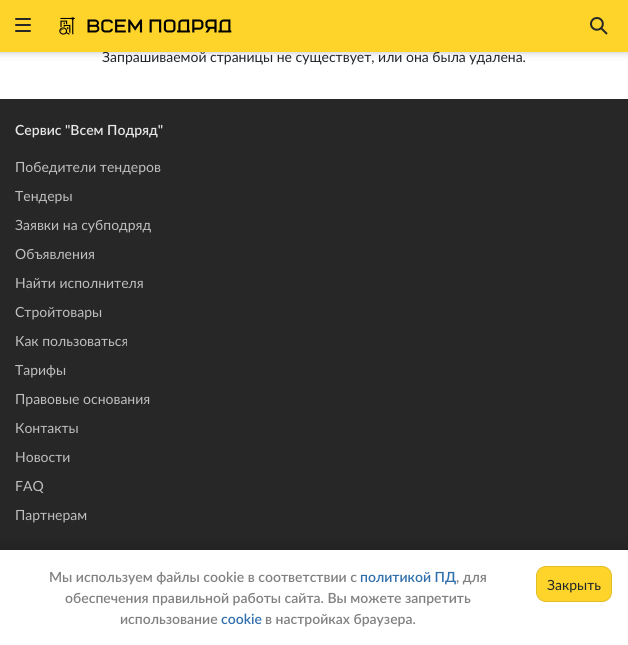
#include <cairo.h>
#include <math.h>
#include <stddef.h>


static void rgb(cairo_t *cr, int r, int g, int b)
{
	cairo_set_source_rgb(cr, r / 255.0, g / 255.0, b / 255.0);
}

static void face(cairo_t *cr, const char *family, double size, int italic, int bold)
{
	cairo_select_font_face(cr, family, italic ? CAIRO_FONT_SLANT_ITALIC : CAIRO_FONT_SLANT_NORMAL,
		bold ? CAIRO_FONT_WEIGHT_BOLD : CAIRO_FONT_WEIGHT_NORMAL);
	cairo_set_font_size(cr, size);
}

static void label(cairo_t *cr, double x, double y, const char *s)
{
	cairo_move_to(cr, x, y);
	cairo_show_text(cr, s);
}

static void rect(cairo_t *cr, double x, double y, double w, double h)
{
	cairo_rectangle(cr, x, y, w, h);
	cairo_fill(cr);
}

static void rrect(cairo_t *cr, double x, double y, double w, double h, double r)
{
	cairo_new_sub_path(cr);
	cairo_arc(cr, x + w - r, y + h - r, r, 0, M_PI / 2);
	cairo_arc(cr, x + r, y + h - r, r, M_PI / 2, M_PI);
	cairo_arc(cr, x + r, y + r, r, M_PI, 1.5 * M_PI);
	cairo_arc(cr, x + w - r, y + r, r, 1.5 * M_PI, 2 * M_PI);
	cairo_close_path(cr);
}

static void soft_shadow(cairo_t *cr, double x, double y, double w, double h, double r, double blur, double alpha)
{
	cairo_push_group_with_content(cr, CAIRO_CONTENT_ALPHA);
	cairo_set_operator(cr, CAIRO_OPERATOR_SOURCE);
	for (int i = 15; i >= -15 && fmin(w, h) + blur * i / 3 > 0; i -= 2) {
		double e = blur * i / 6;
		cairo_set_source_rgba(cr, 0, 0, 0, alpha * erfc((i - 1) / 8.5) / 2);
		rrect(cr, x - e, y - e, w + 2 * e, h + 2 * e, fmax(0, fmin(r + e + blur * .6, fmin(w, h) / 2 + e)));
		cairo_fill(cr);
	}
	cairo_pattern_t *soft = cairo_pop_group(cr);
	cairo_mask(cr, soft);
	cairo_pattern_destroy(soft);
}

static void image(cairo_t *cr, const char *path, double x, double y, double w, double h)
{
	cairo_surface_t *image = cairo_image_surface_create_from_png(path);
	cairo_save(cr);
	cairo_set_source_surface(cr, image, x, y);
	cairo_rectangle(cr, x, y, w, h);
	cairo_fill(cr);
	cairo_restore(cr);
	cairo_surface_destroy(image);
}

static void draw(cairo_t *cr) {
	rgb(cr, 255, 255, 255);
	cairo_paint(cr);
	rgb(cr, 0, 0, 0);
	soft_shadow(cr, -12, 0, 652, 52, 0, 4, 0.25);
	face(cr, "Lato", 14, 0, 0);
	rgb(cr, 33, 37, 41);
	label(cr, 102, 62, "Запрашиваемой страницы не существует, или она была удалена.");
	rgb(cr, 254, 212, 43);
	rect(cr, 0, 0, 628, 52);
	rgb(cr, 39, 39, 39);
	rrect(cr, 15, 24, 16, 2, 1);
	cairo_fill(cr);
	rrect(cr, 15, 18, 16, 2, 1);
	cairo_fill(cr);
	rrect(cr, 15, 30, 16, 2, 1);
	cairo_fill(cr);
	image(cr, "image0.png", 59, 17, 173, 18);
	image(cr, "image1.png", 590, 17, 18, 18);
	rect(cr, 0, 99, 628, 451);
	face(cr, "Lato SemiBold", 14, 0, 0);
	rgb(cr, 230, 230, 230);
	label(cr, 15, 135, "Сервис \"Всем Подряд\"");
	face(cr, "Lato", 14, 0, 0);
	rgb(cr, 191, 191, 191);
	label(cr, 15, 172, "Победители тендеров");
	label(cr, 15, 201, "Тендеры");
	label(cr, 15, 230, "Заявки на субподряд");
	label(cr, 15, 259, "Объявления");
	label(cr, 15, 288, "Найти исполнителя");
	label(cr, 15, 317, "Стройтовары");
	label(cr, 15, 346, "Как пользоваться");
	label(cr, 15, 375, "Тарифы");
	label(cr, 15, 404, "Правовые основания");
	label(cr, 15, 433, "Контакты");
	label(cr, 15, 462, "Новости");
	label(cr, 15, 491, "FAQ");
	label(cr, 15, 520, "Партнерам");
	rgb(cr, 0, 0, 0);
	soft_shadow(cr, 0, 550, 628, 95, 0, 9, 0.25);
	rgb(cr, 255, 255, 255);
	rect(cr, 0, 550, 628, 95);
	face(cr, "Lato SemiBold", 14, 0, 0);
	rgb(cr, 128, 128, 128);
	label(cr, 49, 582, "Мы используем файлы cookie в соответствии с");
	rgb(cr, 49, 112, 173);
	label(cr, 360, 582, "политикой ПД");
	rgb(cr, 128, 128, 128);
	label(cr, 456, 582, ", для");
	label(cr, 65, 603, "обеспечения правильной работы сайта. Вы можете запретить");
	label(cr, 120, 624, "использование");
	rgb(cr, 49, 112, 173);
	label(cr, 221, 624, "cookie");
	rgb(cr, 128, 128, 128);
	label(cr, 265, 624, "в настройках браузера.");
	rgb(cr, 254, 212, 43);
	rrect(cr, 536.5, 566.5, 75, 35, 9.5);
	cairo_fill_preserve(cr);
	rgb(cr, 226, 189, 38);
	cairo_set_line_width(cr, 1);
	cairo_stroke(cr);
	face(cr, "Lato", 14, 0, 0);
	rgb(cr, 33, 37, 41);
	label(cr, 547, 590, "Закрыть");
}

int main(void) {
	cairo_surface_t *surface = cairo_image_surface_create(CAIRO_FORMAT_RGB24, 628, 645);
	cairo_t *cr = cairo_create(surface);
	cairo_font_options_t *options = cairo_font_options_create();
	cairo_font_options_set_hint_metrics(options, CAIRO_HINT_METRICS_OFF);
	cairo_font_options_set_hint_style(options, CAIRO_HINT_STYLE_NONE);
	cairo_set_font_options(cr, options);
	cairo_set_miter_limit(cr, 4);
	draw(cr);
	cairo_surface_write_to_png(surface, "render.png");
	cairo_font_options_destroy(options);
	cairo_destroy(cr);
	cairo_surface_destroy(surface);
	return 0;
}
